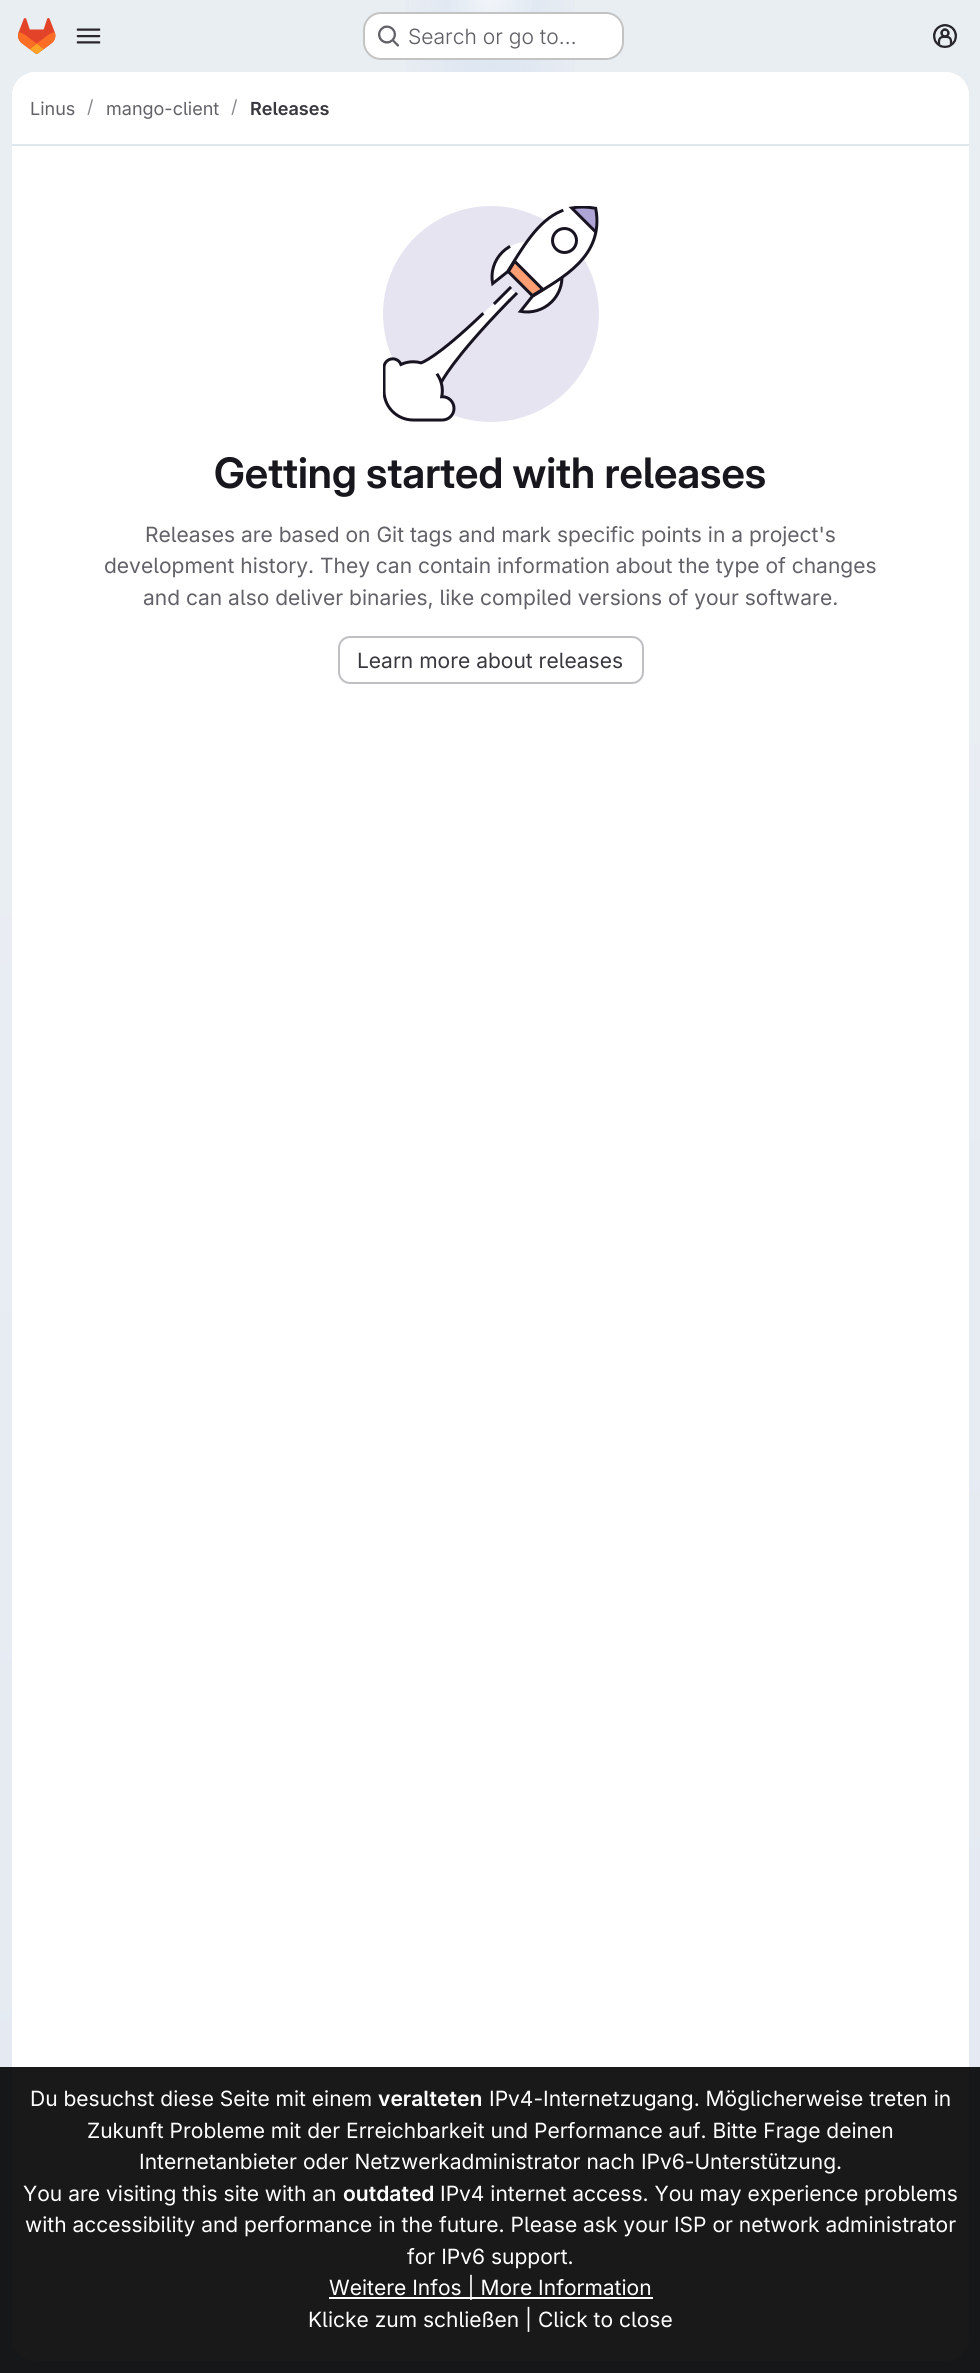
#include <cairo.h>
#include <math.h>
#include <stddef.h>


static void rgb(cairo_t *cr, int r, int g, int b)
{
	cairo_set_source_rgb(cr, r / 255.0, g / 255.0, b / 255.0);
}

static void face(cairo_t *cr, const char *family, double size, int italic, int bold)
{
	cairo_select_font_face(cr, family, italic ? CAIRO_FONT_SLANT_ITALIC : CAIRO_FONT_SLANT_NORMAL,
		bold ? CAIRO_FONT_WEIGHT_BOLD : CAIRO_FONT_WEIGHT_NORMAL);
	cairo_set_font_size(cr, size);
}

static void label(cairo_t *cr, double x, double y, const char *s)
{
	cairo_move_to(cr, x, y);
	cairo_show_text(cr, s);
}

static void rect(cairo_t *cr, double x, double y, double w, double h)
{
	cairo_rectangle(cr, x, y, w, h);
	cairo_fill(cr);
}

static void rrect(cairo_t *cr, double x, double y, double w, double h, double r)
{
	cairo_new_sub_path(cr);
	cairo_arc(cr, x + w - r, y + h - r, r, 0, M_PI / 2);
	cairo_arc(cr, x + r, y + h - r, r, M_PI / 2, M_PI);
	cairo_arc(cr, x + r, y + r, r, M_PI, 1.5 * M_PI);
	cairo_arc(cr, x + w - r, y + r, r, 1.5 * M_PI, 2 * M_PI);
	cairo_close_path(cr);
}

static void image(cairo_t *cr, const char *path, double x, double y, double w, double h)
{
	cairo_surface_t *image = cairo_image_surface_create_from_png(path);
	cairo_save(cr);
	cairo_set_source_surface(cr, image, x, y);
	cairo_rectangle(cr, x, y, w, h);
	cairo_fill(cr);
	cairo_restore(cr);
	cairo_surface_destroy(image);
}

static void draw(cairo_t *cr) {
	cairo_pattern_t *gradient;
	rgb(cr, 255, 255, 255);
	cairo_paint(cr);
	gradient = cairo_pattern_create_linear(708, 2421, 273, -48);
	cairo_pattern_add_color_stop_rgba(gradient, 0, 0.894, 0.914, 0.949, 1);
	cairo_pattern_add_color_stop_rgba(gradient, 0.7, 0.914, 0.933, 0.953, 1);
	cairo_set_source(cr, gradient);
	cairo_pattern_destroy(gradient);
	rect(cr, 0, 0, 980, 2373);
	gradient = cairo_pattern_create_radial(0, 0, 0, 0, 0, 1);
	cairo_pattern_set_matrix(gradient, &(cairo_matrix_t){1.0 / 491, 0, 0, 1.0 / 2373, -1.0 * 491 / 491, -1.0 * 0 / 2373});
	cairo_pattern_add_color_stop_rgba(gradient, 0, 0.871, 0.898, 0.945, 1);
	cairo_pattern_add_color_stop_rgba(gradient, 0.21, 0.871, 0.898, 0.945, 0);
	cairo_set_source(cr, gradient);
	cairo_pattern_destroy(gradient);
	rect(cr, 406, 0, 169, 72);
	gradient = cairo_pattern_create_radial(0, 0, 0, 0, 0, 1);
	cairo_pattern_set_matrix(gradient, &(cairo_matrix_t){1.0 / 491, 0, 0, 1.0 / 2373, -1.0 * 491 / 491, -1.0 * 0 / 2373});
	cairo_pattern_add_color_stop_rgba(gradient, 0, 0.871, 0.906, 0.945, 1);
	cairo_pattern_add_color_stop_rgba(gradient, 0.15, 0.871, 0.906, 0.945, 0);
	cairo_set_source(cr, gradient);
	cairo_pattern_destroy(gradient);
	rect(cr, 442, 0, 98, 72);
	gradient = cairo_pattern_create_radial(491, 0, 0, 491, 0, 2423);
	cairo_pattern_add_color_stop_rgba(gradient, 0, 1, 1, 1, 0.6);
	cairo_pattern_add_color_stop_rgba(gradient, 0.02, 1, 1, 1, 0);
	cairo_set_source(cr, gradient);
	cairo_pattern_destroy(gradient);
	rect(cr, 449, 0, 84, 12);
	image(cr, "image0.png", 18, 18, 38, 36);
	image(cr, "image1.png", 76, 28, 25, 16);
	rgb(cr, 255, 255, 255);
	rrect(cr, 363, 12, 261, 48, 18);
	cairo_fill(cr);
	rrect(cr, 364, 13, 259, 46, 17);
	cairo_set_source_rgba(cr, 0.02, 0.02, 0.024, 0.24);
	cairo_stroke(cr);
	image(cr, "image2.png", 378, 25, 21, 22);
	face(cr, "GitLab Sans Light", 21, 0, 0);
	rgb(cr, 98, 97, 104);
	label(cr, 408, 44, "Search or go to…");
	image(cr, "image3.png", 933, 24, 24, 24);
	rgb(cr, 255, 255, 255);
	rrect(cr, 12, 72, 957, 2289, 24);
	cairo_fill(cr);
	cairo_new_path(cr);
	cairo_move_to(cr, 36, 72);
	cairo_line_to(cr, 945, 72);
	cairo_curve_to(cr, 958.5, 72, 969, 82.5, 969, 96);
	cairo_line_to(cr, 969, 146);
	cairo_line_to(cr, 12, 146);
	cairo_line_to(cr, 12, 96);
	cairo_curve_to(cr, 12, 82.5, 22.5, 72, 36, 72);
	cairo_close_path(cr);
	cairo_fill(cr);
	rgb(cr, 223, 230, 236);
	rect(cr, 12, 144, 957, 2);
	face(cr, "GitLab Sans", 18, 0, 0);
	rgb(cr, 98, 97, 104);
	label(cr, 30, 115, "Linus");
	rgb(cr, 137, 136, 141);
	label(cr, 87, 113, "/");
	rgb(cr, 98, 97, 104);
	label(cr, 106, 115, "mango-client");
	rgb(cr, 137, 136, 141);
	label(cr, 231, 113, "/");
	face(cr, "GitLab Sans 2 SemiBold", 18, 0, 0);
	rgb(cr, 58, 56, 63);
	label(cr, 250, 115, "Releases");
	image(cr, "image4.png", 383, 206, 216, 216);
	face(cr, "GitLab Sans SemiBold", 42, 0, 0);
	rgb(cr, 24, 23, 29);
	label(cr, 214, 488, "Getting started with releases");
	face(cr, "GitLab Sans", 21, 0, 0);
	rgb(cr, 98, 97, 104);
	label(cr, 145, 542, "Releases are based on Git tags and mark specific points in a project's");
	label(cr, 104, 573, "development history. They can contain information about the type of changes");
	label(cr, 143, 605, "and can also deliver binaries, like compiled versions of your software.");
	rrect(cr, 339, 637, 304, 46, 11);
	rgb(cr, 191, 191, 195);
	cairo_stroke(cr);
	rgb(cr, 58, 56, 63);
	label(cr, 357, 668, "Learn more about releases");
	cairo_set_source_rgba(cr, 0, 0, 0, 0.9);
	rect(cr, 0, 2067, 980, 306);
	rgb(cr, 255, 255, 255);
	label(cr, 30, 2106, "Du besuchst diese Seite mit einem");
	face(cr, "GitLab Sans 2 SemiBold", 21, 0, 0);
	label(cr, 378, 2106, "veralteten");
	face(cr, "GitLab Sans", 21, 0, 0);
	label(cr, 489, 2106, "IPv4-Internetzugang. Möglicherweise treten in");
	label(cr, 87, 2138, "Zukunft Probleme mit der Erreichbarkeit und Performance auf. Bitte Frage deinen");
	label(cr, 139, 2169, "Internetanbieter oder Netzwerkadministrator nach IPv6-Unterstützung.");
	label(cr, 23, 2201, "You are visiting this site with an");
	face(cr, "GitLab Sans 2 SemiBold", 21, 0, 0);
	label(cr, 343, 2201, "outdated");
	face(cr, "GitLab Sans", 21, 0, 0);
	label(cr, 440, 2201, "IPv4 internet access. You may experience problems");
	label(cr, 25, 2232, "with accessibility and performance in the future. Please ask your ISP or network administrator");
	label(cr, 407, 2264, "for IPv6 support.");
	rect(cr, 329, 2297, 324, 2);
	label(cr, 329, 2295, "Weitere Infos | More Information");
	label(cr, 308, 2327, "Klicke zum schließen | Click to close");
}

int main(void) {
	cairo_surface_t *surface = cairo_image_surface_create(CAIRO_FORMAT_RGB24, 980, 2373);
	cairo_t *cr = cairo_create(surface);
	cairo_font_options_t *options = cairo_font_options_create();
	cairo_font_options_set_hint_metrics(options, CAIRO_HINT_METRICS_OFF);
	cairo_font_options_set_hint_style(options, CAIRO_HINT_STYLE_NONE);
	cairo_set_font_options(cr, options);
	cairo_set_miter_limit(cr, 4);
	draw(cr);
	cairo_surface_write_to_png(surface, "render.png");
	cairo_font_options_destroy(options);
	cairo_destroy(cr);
	cairo_surface_destroy(surface);
	return 0;
}
